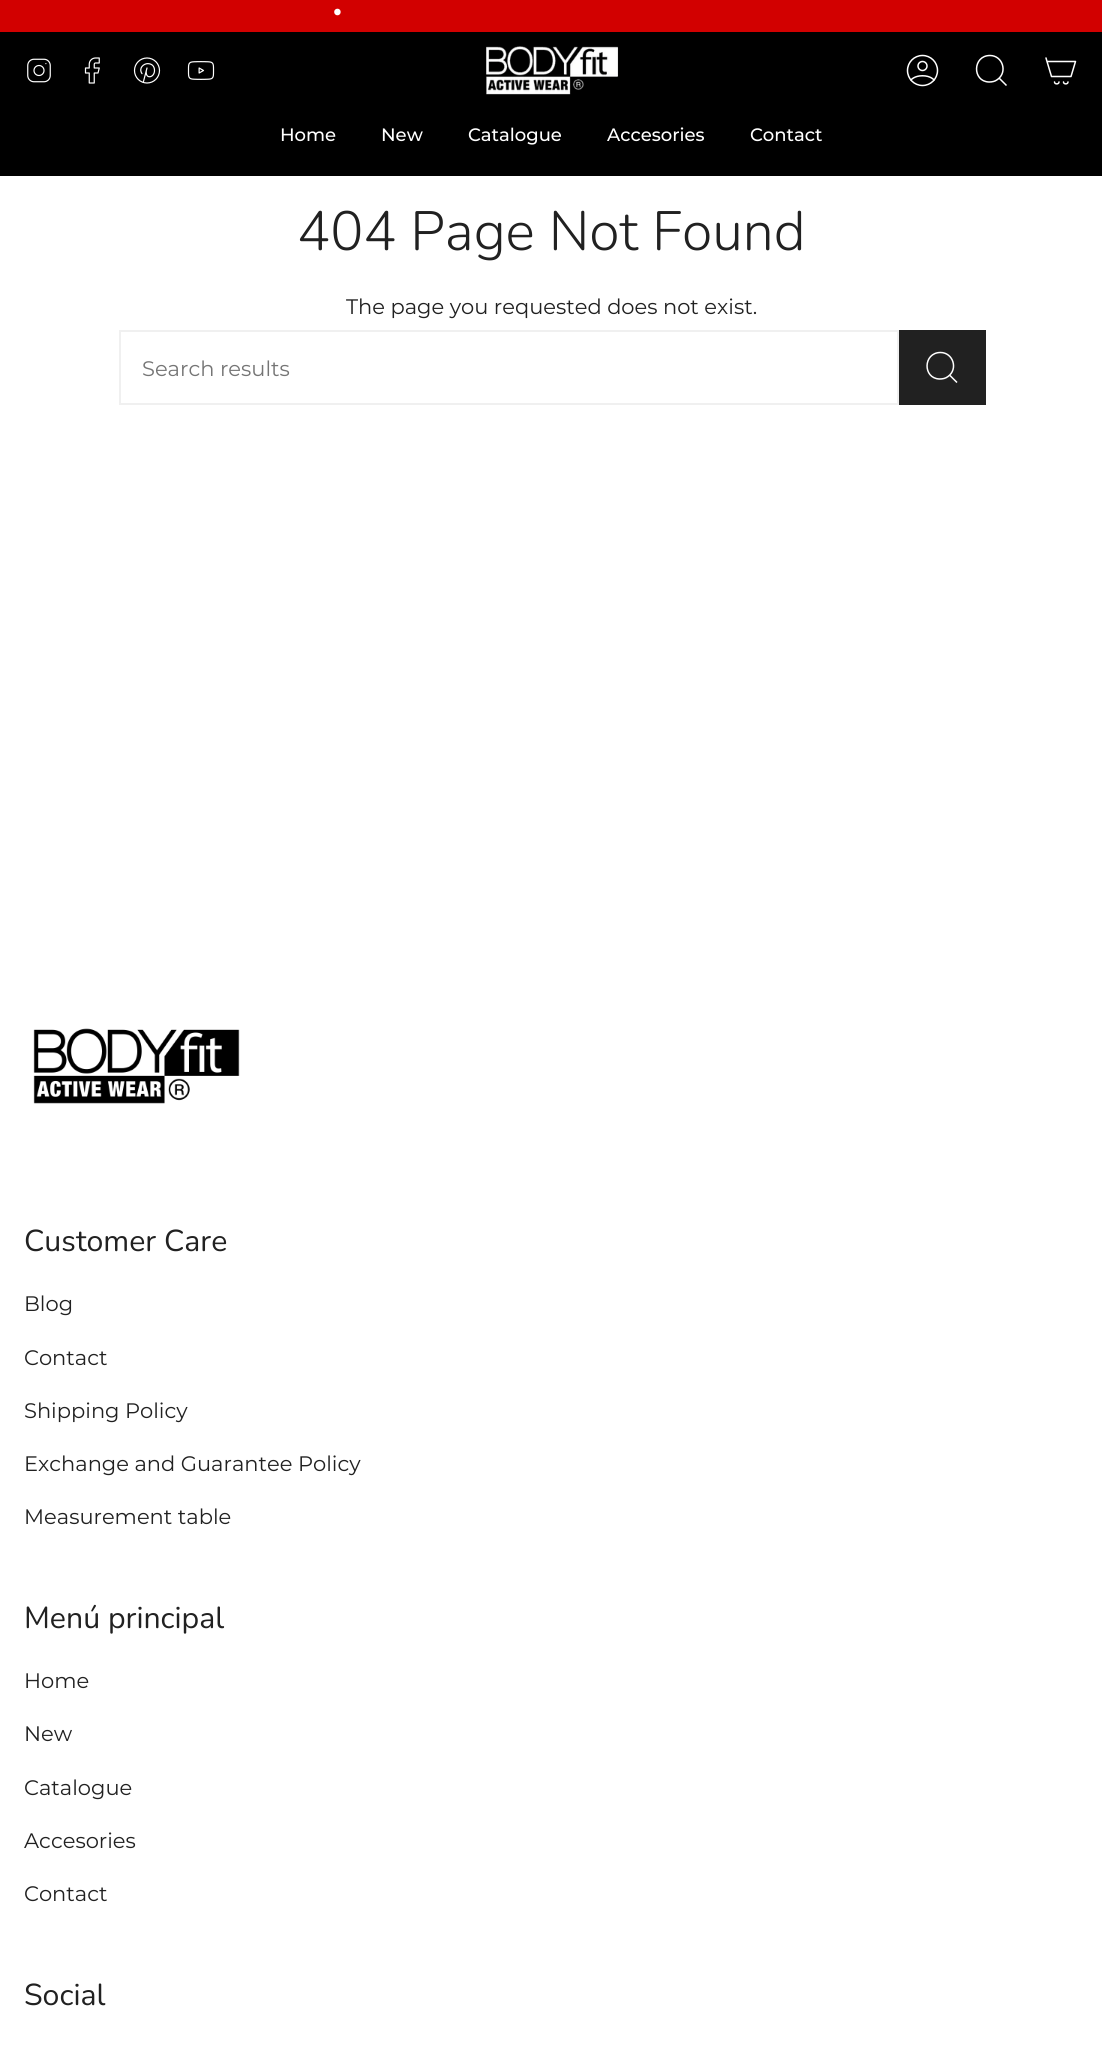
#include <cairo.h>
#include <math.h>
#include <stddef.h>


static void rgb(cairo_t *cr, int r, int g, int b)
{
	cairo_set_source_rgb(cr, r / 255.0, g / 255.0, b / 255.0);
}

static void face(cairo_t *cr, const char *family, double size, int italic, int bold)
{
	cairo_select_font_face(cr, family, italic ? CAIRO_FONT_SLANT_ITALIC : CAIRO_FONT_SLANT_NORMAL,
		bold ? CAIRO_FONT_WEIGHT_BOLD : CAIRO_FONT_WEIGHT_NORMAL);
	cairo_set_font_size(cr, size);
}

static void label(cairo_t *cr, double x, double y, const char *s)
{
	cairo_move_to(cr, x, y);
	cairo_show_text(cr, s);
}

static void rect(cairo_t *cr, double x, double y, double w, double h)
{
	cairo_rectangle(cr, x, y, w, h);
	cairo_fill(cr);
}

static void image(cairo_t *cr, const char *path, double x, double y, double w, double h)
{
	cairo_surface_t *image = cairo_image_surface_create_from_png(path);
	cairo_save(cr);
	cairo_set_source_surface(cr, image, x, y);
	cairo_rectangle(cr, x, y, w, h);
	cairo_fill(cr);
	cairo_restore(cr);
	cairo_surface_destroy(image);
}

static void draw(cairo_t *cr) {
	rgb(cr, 255, 255, 255);
	cairo_paint(cr);
	rgb(cr, 210, 0, 0);
	rect(cr, 0, 0, 1102, 32);
	face(cr, "Montserrat Medium", 48, 0, 0);
	rgb(cr, 255, 255, 255);
	label(cr, 332, 15, ".");
	rgb(cr, 0, 0, 0);
	rect(cr, 0, 32, 1102, 144);
	image(cr, "image0.png", 27, 58, 24, 25);
	image(cr, "image1.png", 84, 57, 16, 27);
	image(cr, "image2.png", 133, 57, 28, 27);
	image(cr, "image3.png", 187, 61, 28, 19);
	image(cr, "image4.png", 486, 46, 133, 49);
	image(cr, "image5.png", 906, 54, 33, 33);
	cairo_new_path(cr);
	cairo_move_to(cr, 990, 55.5);
	cairo_curve_to(cr, 1002.5, 55.5, 1008, 72, 997.5, 79.5);
	cairo_curve_to(cr, 995, 81.5, 992, 82, 989, 82);
	cairo_curve_to(cr, 972, 81.5, 972.5, 55.5, 990, 55.5);
	cairo_close_path(cr);
	cairo_move_to(cr, 999, 78);
	cairo_line_to(cr, 1006.5, 85.5);
	rgb(cr, 255, 255, 255);
	cairo_set_line_width(cr, 1.5);
	cairo_stroke(cr);
	cairo_new_path(cr);
	cairo_move_to(cr, 1047, 61.5);
	cairo_line_to(cr, 1075.5, 61.5);
	cairo_line_to(cr, 1071, 76.5);
	cairo_line_to(cr, 1051.5, 76.5);
	cairo_close_path(cr);
	cairo_move_to(cr, 1047, 61.5);
	cairo_line_to(cr, 1046, 58);
	cairo_move_to(cr, 1059, 82);
	cairo_curve_to(cr, 1059, 84.5, 1054.5, 84.5, 1054.5, 82);
	cairo_move_to(cr, 1068, 82);
	cairo_curve_to(cr, 1068, 84.5, 1063.5, 84.5, 1063.5, 82);
	cairo_set_line_cap(cr, CAIRO_LINE_CAP_ROUND);
	cairo_set_line_join(cr, CAIRO_LINE_JOIN_ROUND);
	cairo_stroke(cr);
	face(cr, "Montserrat Medium", 18, 0, 0);
	label(cr, 280, 141, "Home");
	label(cr, 381, 141, "New");
	label(cr, 468, 141, "Catalogue");
	label(cr, 607, 141, "Accesories");
	label(cr, 750, 141, "Contact");
	face(cr, "Nunito Light", 55.25, 0, 0);
	rgb(cr, 33, 33, 33);
	label(cr, 297, 250, "404 Page Not Found");
	face(cr, "Montserrat", 21, 0, 0);
	label(cr, 346, 314, "The page you requested does not exist.");
	cairo_rectangle(cr, 120, 331, 778, 73);
	rgb(cr, 240, 240, 240);
	cairo_set_line_width(cr, 2);
	cairo_set_line_cap(cr, CAIRO_LINE_CAP_BUTT);
	cairo_set_line_join(cr, CAIRO_LINE_JOIN_MITER);
	cairo_stroke(cr);
	rgb(cr, 117, 117, 117);
	label(cr, 142, 376, "Search results");
	rgb(cr, 33, 33, 33);
	rect(cr, 899, 330, 87, 75);
	cairo_new_path(cr);
	cairo_move_to(cr, 940.5, 352.5);
	cairo_curve_to(cr, 953, 352.5, 958.5, 369, 948, 376.5);
	cairo_curve_to(cr, 945.5, 378.5, 942.5, 379, 939.5, 379);
	cairo_curve_to(cr, 922.5, 378.5, 923, 352.5, 940.5, 352.5);
	cairo_close_path(cr);
	cairo_move_to(cr, 949.5, 375);
	cairo_line_to(cr, 957, 382.5);
	rgb(cr, 255, 255, 255);
	cairo_set_line_width(cr, 1.5);
	cairo_stroke(cr);
	image(cr, "image6.png", 33, 1028, 207, 76);
	face(cr, "Nunito", 30.25, 0, 0);
	rgb(cr, 33, 33, 33);
	label(cr, 24, 1251, "Customer Care");
	face(cr, "Montserrat", 21, 0, 0);
	label(cr, 24, 1311, "Blog");
	label(cr, 24, 1365, "Contact");
	label(cr, 24, 1418, "Shipping Policy");
	label(cr, 24, 1471, "Exchange and Guarantee Policy");
	label(cr, 24, 1524, "Measurement table");
	face(cr, "Nunito", 30.25, 0, 0);
	label(cr, 24, 1628, "Menú principal");
	face(cr, "Montserrat", 21, 0, 0);
	label(cr, 24, 1688, "Home");
	label(cr, 24, 1741, "New");
	label(cr, 24, 1795, "Catalogue");
	label(cr, 24, 1848, "Accesories");
	label(cr, 24, 1901, "Contact");
	face(cr, "Nunito", 30.25, 0, 0);
	label(cr, 24, 2005, "Social");
}

int main(void) {
	cairo_surface_t *surface = cairo_image_surface_create(CAIRO_FORMAT_RGB24, 1102, 2046);
	cairo_t *cr = cairo_create(surface);
	cairo_font_options_t *options = cairo_font_options_create();
	cairo_font_options_set_hint_metrics(options, CAIRO_HINT_METRICS_OFF);
	cairo_font_options_set_hint_style(options, CAIRO_HINT_STYLE_NONE);
	cairo_set_font_options(cr, options);
	cairo_set_miter_limit(cr, 4);
	draw(cr);
	cairo_surface_write_to_png(surface, "render.png");
	cairo_font_options_destroy(options);
	cairo_destroy(cr);
	cairo_surface_destroy(surface);
	return 0;
}
